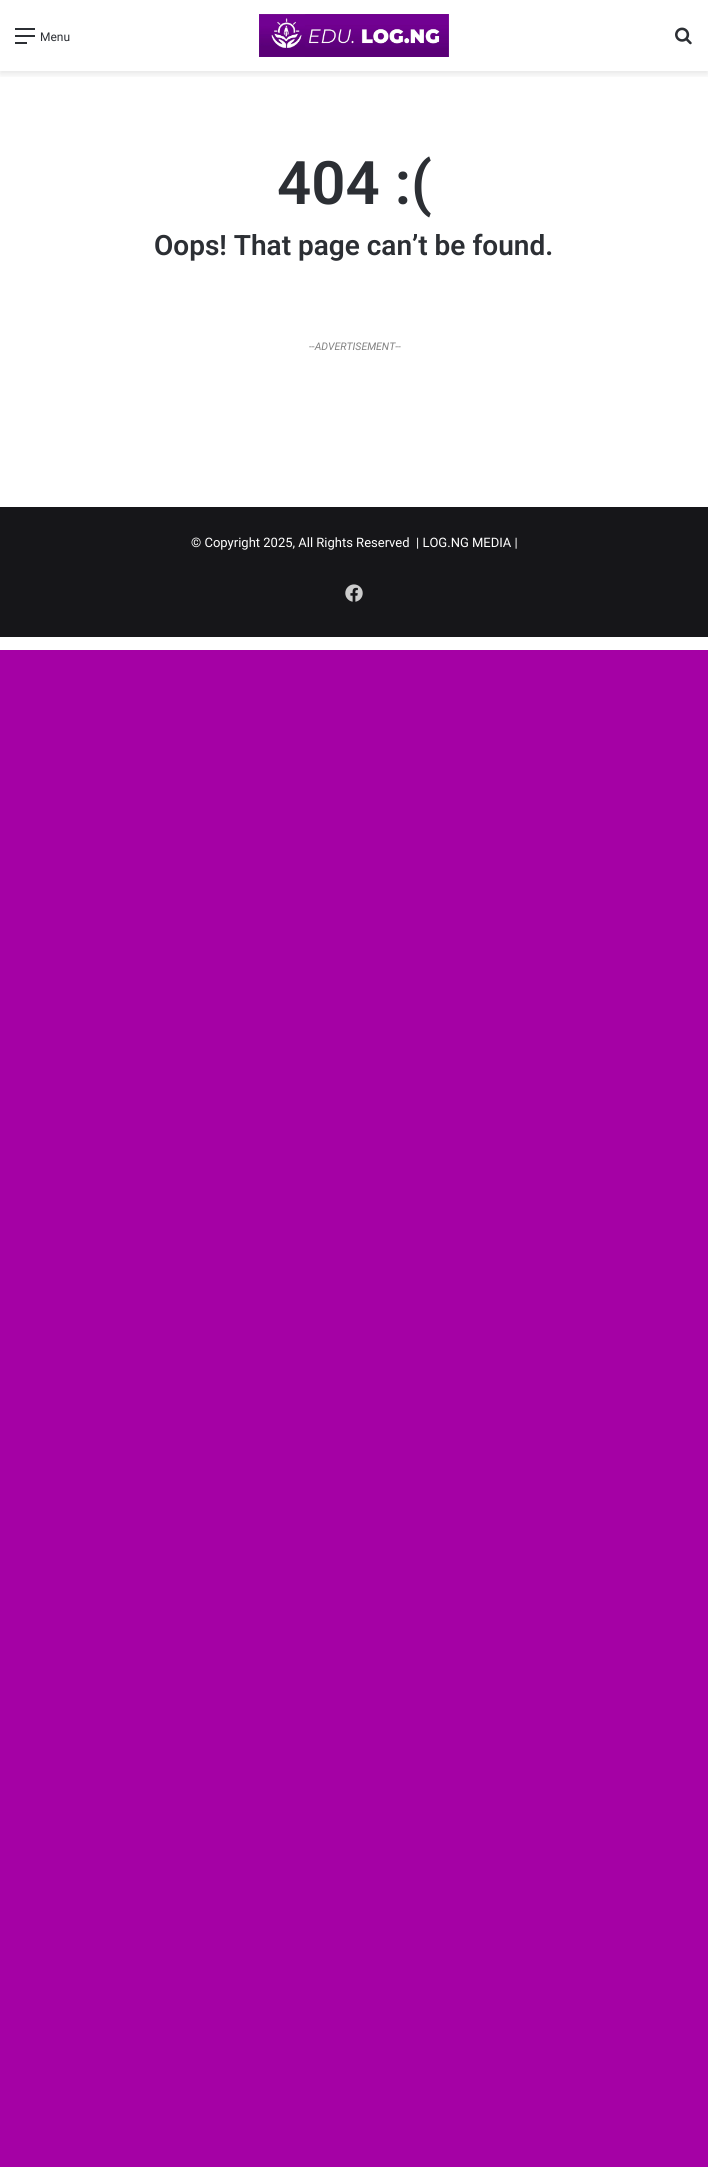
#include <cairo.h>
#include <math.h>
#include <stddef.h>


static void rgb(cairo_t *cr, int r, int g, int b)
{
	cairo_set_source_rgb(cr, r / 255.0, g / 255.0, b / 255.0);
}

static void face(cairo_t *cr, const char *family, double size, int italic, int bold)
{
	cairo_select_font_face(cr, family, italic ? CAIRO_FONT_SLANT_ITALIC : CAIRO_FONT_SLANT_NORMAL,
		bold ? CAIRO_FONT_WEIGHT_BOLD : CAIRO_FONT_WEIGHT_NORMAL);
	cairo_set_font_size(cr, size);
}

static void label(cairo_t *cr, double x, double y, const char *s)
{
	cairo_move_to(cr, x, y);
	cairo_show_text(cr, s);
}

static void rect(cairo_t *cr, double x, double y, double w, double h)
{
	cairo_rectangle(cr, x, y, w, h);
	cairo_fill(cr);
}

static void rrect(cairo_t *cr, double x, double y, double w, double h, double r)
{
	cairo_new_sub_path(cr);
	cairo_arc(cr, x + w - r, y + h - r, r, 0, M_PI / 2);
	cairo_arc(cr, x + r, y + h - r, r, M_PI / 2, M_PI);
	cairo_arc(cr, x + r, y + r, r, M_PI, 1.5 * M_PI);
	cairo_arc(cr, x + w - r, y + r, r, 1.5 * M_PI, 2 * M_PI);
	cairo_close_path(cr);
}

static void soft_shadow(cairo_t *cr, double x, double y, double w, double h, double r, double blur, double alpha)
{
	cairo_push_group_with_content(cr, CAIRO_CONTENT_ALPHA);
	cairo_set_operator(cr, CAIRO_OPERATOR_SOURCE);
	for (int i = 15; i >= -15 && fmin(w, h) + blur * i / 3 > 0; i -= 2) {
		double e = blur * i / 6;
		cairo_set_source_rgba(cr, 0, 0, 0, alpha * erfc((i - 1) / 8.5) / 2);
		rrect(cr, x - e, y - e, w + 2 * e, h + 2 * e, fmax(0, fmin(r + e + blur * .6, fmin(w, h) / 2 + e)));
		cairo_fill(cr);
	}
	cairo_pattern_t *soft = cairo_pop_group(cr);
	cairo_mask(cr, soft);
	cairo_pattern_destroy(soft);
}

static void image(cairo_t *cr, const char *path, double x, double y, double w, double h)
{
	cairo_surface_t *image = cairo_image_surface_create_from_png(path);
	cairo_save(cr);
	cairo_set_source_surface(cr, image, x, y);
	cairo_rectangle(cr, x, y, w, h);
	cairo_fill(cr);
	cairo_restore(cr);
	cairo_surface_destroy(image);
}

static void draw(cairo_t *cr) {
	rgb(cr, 165, 1, 165);
	cairo_paint(cr);
	rgb(cr, 255, 255, 255);
	rect(cr, 0, 0, 708, 650);
	cairo_save(cr);
	cairo_rectangle(cr, 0, 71, 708, 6);
	cairo_clip(cr);
	rgb(cr, 0, 0, 0);
	soft_shadow(cr, 0, 3, 708, 71, 0, 3.5, 0.1);
	cairo_restore(cr);
	rgb(cr, 44, 47, 52);
	rect(cr, 15, 35, 20, 2);
	rect(cr, 15, 28, 20, 2);
	rect(cr, 15, 42, 12, 2);
	face(cr, "Roboto", 12, 0, 0);
	label(cr, 40, 41, "Menu");
	image(cr, "image0.png", 259, 14, 190, 43);
	image(cr, "image1.png", 675, 27, 17, 18);
	face(cr, "Roboto SemiBold", 60, 0, 0);
	label(cr, 277, 204, "404 :(");
	face(cr, "Roboto SemiBold", 28, 0, 0);
	label(cr, 154, 255, "Oops! That page can’t be found.");
	face(cr, "Roboto", 10.5, 1, 0);
	rgb(cr, 128, 128, 128);
	label(cr, 309, 350, "--ADVERTISEMENT--");
	rgb(cr, 22, 22, 25);
	rect(cr, 0, 507, 708, 130);
	face(cr, "Roboto", 13, 0, 0);
	rgb(cr, 255, 255, 255);
	label(cr, 191, 547, "© Copyright 2025, All Rights Reserved  | LOG.NG MEDIA |");
	image(cr, "image2.png", 345, 584, 18, 18);
}

int main(void) {
	cairo_surface_t *surface = cairo_image_surface_create(CAIRO_FORMAT_RGB24, 708, 2167);
	cairo_t *cr = cairo_create(surface);
	cairo_font_options_t *options = cairo_font_options_create();
	cairo_font_options_set_hint_metrics(options, CAIRO_HINT_METRICS_OFF);
	cairo_font_options_set_hint_style(options, CAIRO_HINT_STYLE_NONE);
	cairo_set_font_options(cr, options);
	cairo_set_miter_limit(cr, 4);
	draw(cr);
	cairo_surface_write_to_png(surface, "render.png");
	cairo_font_options_destroy(options);
	cairo_destroy(cr);
	cairo_surface_destroy(surface);
	return 0;
}
